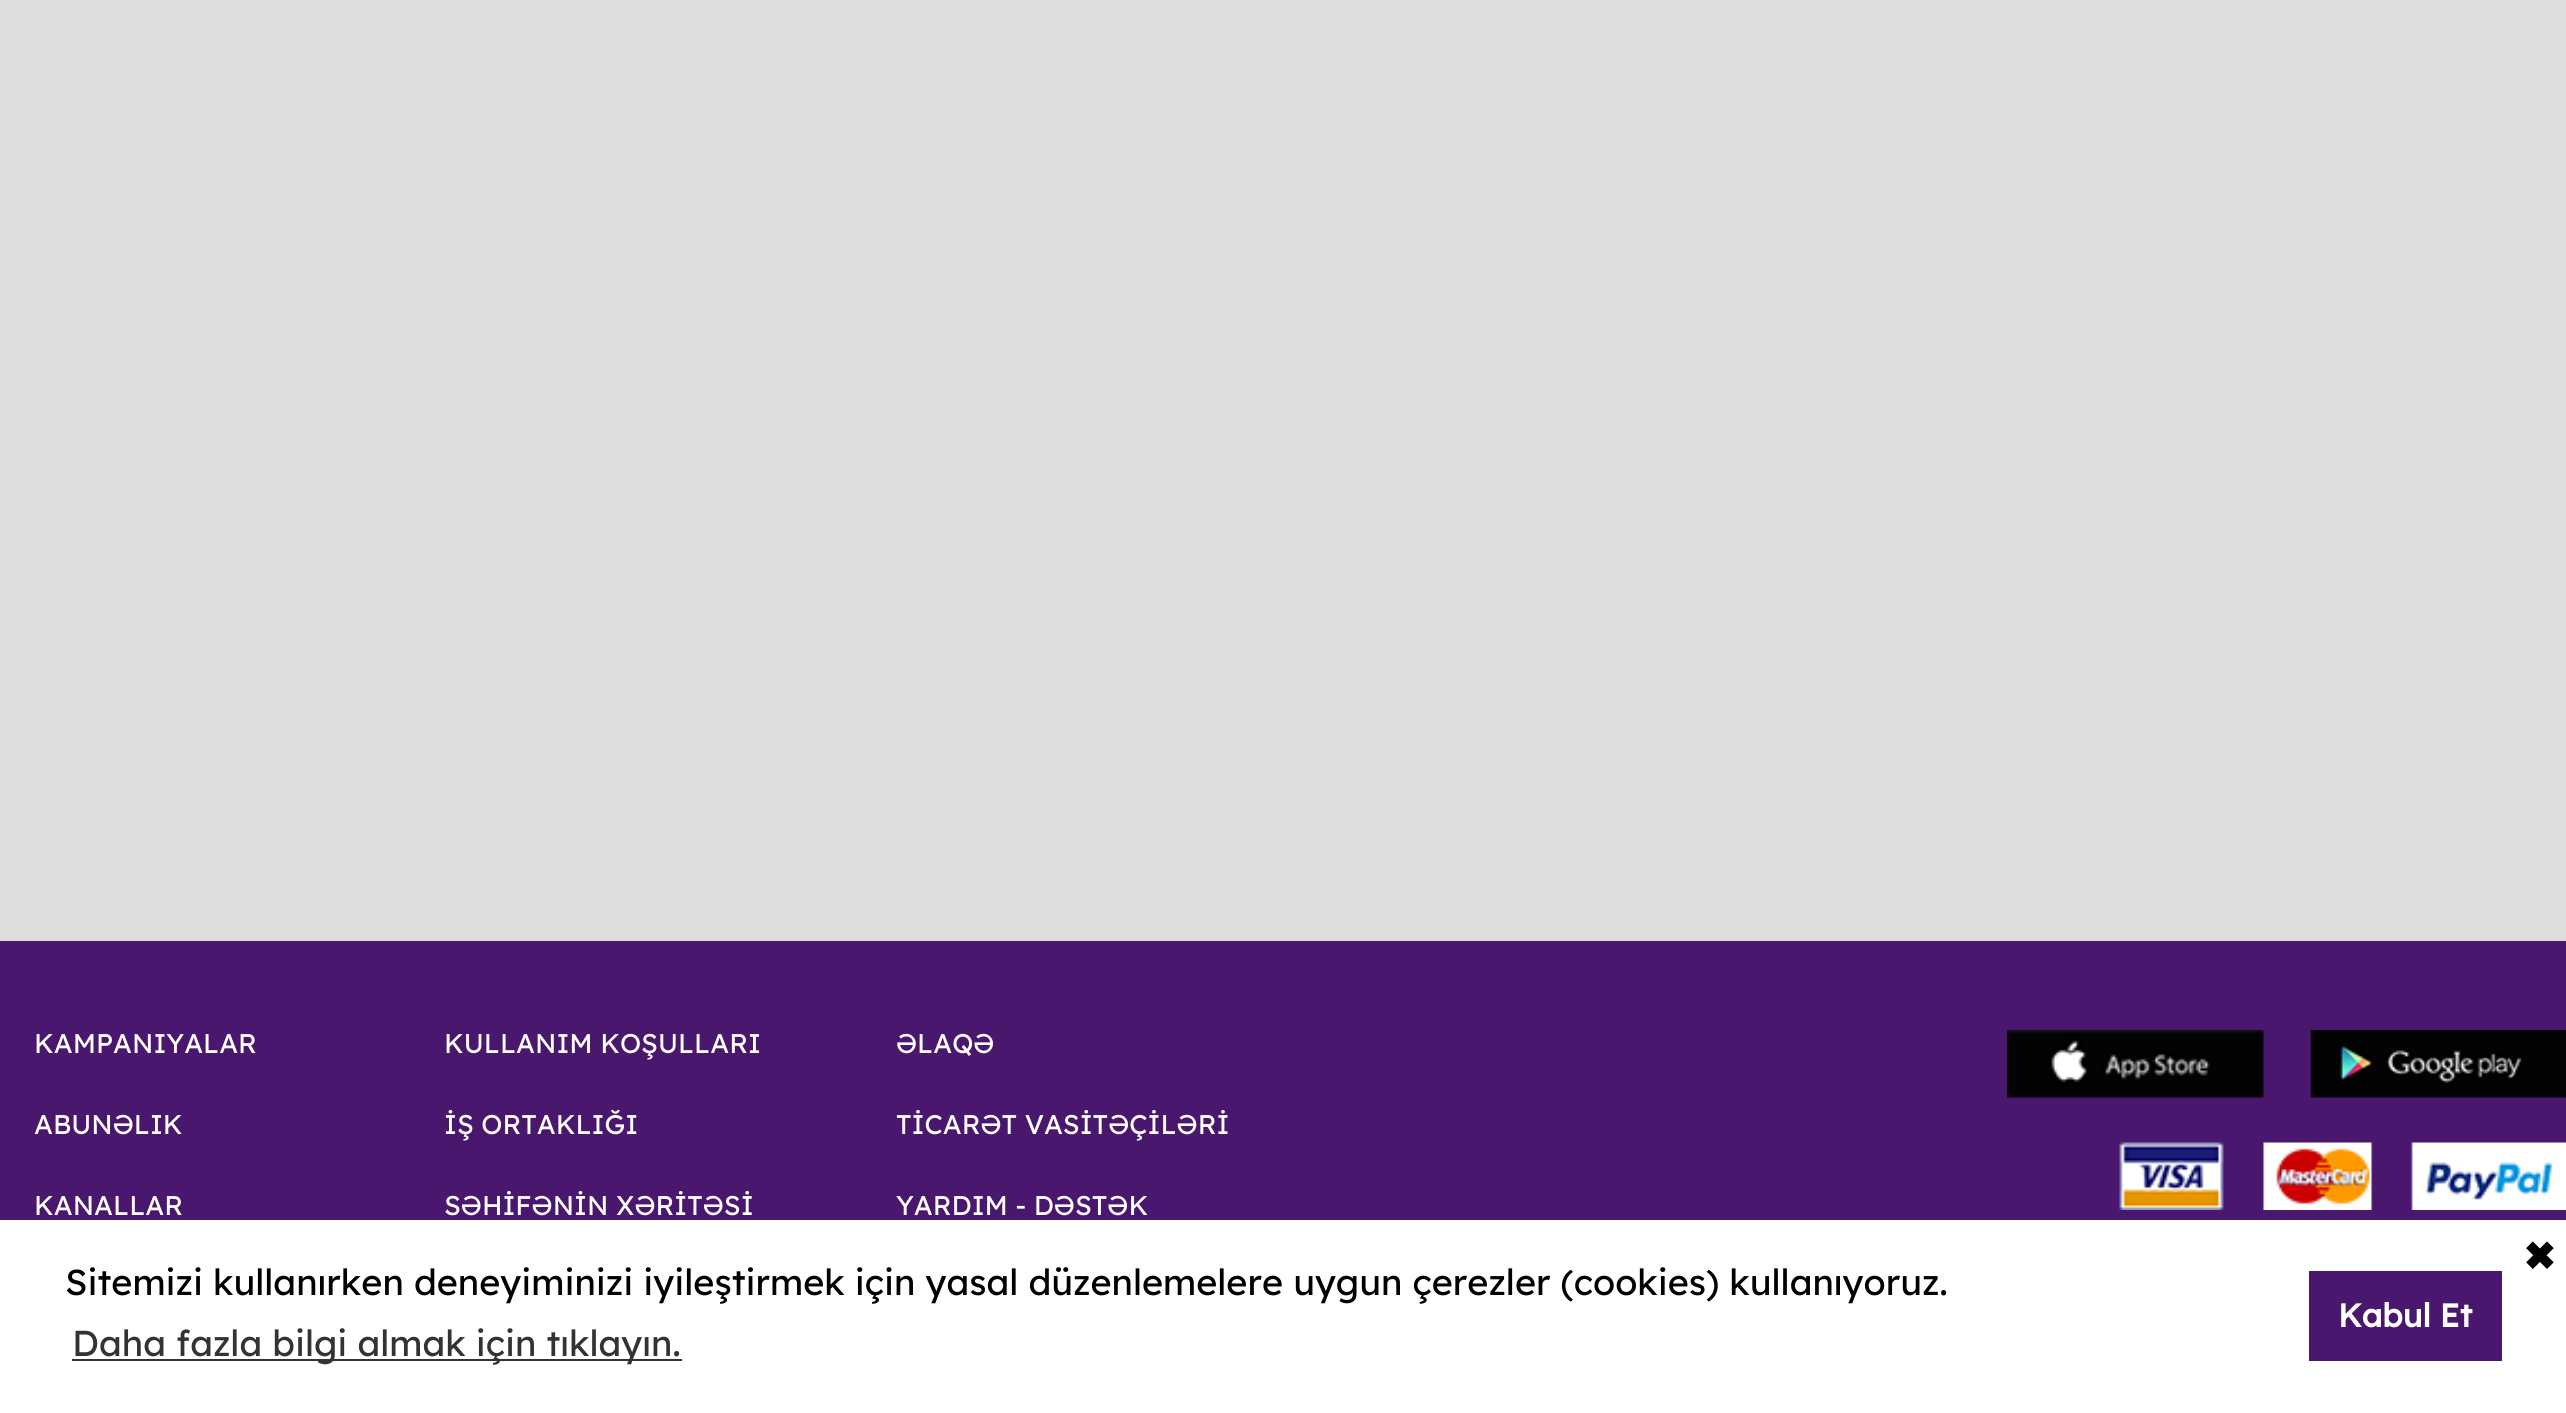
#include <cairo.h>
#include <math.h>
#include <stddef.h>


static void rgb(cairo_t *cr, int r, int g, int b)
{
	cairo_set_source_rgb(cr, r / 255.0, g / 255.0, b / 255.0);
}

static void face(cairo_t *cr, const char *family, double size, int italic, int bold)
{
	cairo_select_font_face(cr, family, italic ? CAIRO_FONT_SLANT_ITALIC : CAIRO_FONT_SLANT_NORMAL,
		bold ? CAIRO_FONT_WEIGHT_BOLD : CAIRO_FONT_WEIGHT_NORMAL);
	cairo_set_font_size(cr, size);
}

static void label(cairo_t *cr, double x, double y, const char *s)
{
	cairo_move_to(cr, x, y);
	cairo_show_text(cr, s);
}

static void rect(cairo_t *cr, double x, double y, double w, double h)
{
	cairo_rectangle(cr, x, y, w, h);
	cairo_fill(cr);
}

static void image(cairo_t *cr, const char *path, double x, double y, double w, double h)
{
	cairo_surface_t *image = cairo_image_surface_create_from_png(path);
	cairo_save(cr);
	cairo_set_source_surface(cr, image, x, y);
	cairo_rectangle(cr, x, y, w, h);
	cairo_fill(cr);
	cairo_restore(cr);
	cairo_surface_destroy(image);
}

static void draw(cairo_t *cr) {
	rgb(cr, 221, 221, 221);
	cairo_paint(cr);
	rgb(cr, 73, 23, 109);
	rect(cr, 0, 941, 2566, 279);
	face(cr, "Lexend Deca", 27, 0, 0);
	rgb(cr, 255, 255, 255);
	label(cr, 34, 1053, "KAMPANIYALAR");
	label(cr, 34, 1134, "ABUNƏLIK");
	label(cr, 34, 1215, "KANALLAR");
	label(cr, 444, 1053, "KULLANIM KOŞULLARI");
	label(cr, 444, 1134, "İŞ ORTAKLIĞI");
	label(cr, 444, 1215, "SƏHİFƏNİN XƏRİTƏSİ");
	label(cr, 896, 1053, "ƏLAQƏ");
	label(cr, 896, 1134, "TİCARƏT VASİTƏÇİLƏRİ");
	label(cr, 896, 1215, "YARDIM - DƏSTƏK");
	image(cr, "image0.png", 2007, 1030, 257, 68);
	image(cr, "image1.png", 2310, 1030, 256, 68);
	image(cr, "image2.png", 2119, 1142, 447, 68);
	rect(cr, 0, 1220, 2566, 193);
	face(cr, "Lexend Deca", 36, 0, 0);
	rgb(cr, 0, 0, 0);
	label(cr, 65, 1295, "Sitemizi kullanırken deneyiminizi iyileştirmek için yasal düzenlemelere uygun çerezler (cookies) kullanıyoruz.");
	rgb(cr, 51, 51, 51);
	rect(cr, 72, 1359, 610, 2);
	label(cr, 72, 1356, "Daha fazla bilgi almak için tıklayın.");
	face(cr, "DejaVu Sans", 39, 0, 1);
	rgb(cr, 0, 0, 0);
	label(cr, 2523, 1270, "✖");
	rgb(cr, 73, 23, 109);
	rect(cr, 2309, 1271, 193, 90);
	face(cr, "Lexend Deca", 32.5, 0, 1);
	rgb(cr, 255, 255, 255);
	label(cr, 2338, 1327, "Kabul Et");
}

int main(void) {
	cairo_surface_t *surface = cairo_image_surface_create(CAIRO_FORMAT_RGB24, 2566, 1413);
	cairo_t *cr = cairo_create(surface);
	cairo_font_options_t *options = cairo_font_options_create();
	cairo_font_options_set_hint_metrics(options, CAIRO_HINT_METRICS_OFF);
	cairo_font_options_set_hint_style(options, CAIRO_HINT_STYLE_NONE);
	cairo_set_font_options(cr, options);
	cairo_set_miter_limit(cr, 4);
	draw(cr);
	cairo_surface_write_to_png(surface, "render.png");
	cairo_font_options_destroy(options);
	cairo_destroy(cr);
	cairo_surface_destroy(surface);
	return 0;
}
